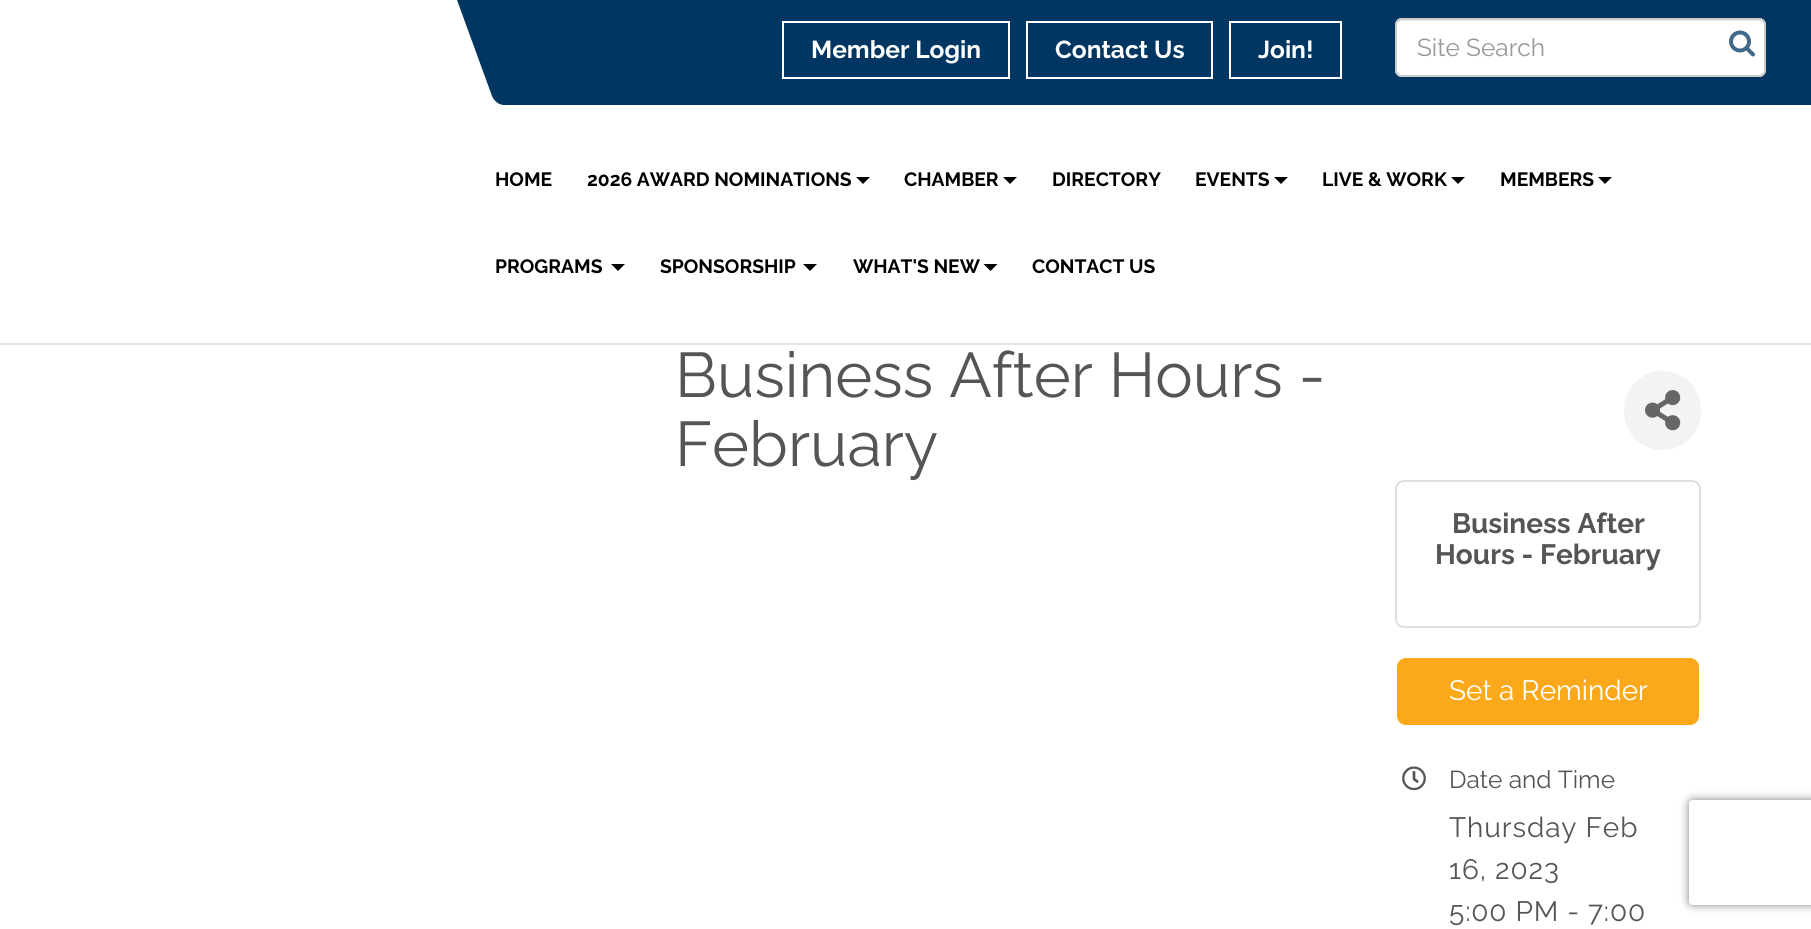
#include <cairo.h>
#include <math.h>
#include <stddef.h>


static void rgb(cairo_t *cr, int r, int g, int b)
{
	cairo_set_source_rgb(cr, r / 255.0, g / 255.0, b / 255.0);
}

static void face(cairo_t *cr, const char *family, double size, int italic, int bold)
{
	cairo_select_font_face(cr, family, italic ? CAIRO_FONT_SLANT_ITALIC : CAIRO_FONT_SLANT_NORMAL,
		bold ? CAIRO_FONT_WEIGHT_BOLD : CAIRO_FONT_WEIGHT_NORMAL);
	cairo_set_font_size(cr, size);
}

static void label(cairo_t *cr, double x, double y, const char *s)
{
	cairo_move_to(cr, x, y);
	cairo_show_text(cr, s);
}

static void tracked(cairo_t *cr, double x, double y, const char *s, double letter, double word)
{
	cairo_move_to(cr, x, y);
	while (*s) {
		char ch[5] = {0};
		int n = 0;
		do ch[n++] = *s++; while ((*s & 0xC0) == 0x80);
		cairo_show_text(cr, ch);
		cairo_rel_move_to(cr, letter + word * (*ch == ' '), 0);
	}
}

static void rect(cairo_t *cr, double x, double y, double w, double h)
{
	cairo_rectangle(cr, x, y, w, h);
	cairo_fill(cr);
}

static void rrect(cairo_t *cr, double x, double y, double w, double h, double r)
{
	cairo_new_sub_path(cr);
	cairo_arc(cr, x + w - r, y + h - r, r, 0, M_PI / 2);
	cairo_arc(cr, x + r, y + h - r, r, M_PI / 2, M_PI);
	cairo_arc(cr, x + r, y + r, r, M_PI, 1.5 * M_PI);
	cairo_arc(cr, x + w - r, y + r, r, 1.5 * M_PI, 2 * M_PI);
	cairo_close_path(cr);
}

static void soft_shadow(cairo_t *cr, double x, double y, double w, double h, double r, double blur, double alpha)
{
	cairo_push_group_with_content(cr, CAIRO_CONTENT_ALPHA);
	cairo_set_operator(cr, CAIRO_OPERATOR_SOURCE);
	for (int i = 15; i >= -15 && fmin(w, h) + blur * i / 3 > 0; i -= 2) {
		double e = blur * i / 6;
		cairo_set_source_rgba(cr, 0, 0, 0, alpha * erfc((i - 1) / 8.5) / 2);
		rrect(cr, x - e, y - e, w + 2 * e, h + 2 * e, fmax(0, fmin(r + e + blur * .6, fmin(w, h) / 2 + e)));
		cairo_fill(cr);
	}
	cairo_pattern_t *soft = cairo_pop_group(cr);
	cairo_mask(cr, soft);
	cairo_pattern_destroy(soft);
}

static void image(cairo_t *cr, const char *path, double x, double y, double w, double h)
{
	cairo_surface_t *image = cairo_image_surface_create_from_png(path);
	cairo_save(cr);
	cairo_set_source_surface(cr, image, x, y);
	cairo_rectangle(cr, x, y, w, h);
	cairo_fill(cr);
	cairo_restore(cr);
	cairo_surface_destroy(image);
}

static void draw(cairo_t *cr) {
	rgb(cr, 255, 255, 255);
	cairo_paint(cr);
	rgb(cr, 230, 230, 230);
	rect(cr, 0, 343, 1811, 2);
	rgb(cr, 0, 54, 97);
	cairo_new_path(cr);
	cairo_move_to(cr, 457, 0);
	cairo_line_to(cr, 1746, 0);
	cairo_line_to(cr, 1784, 105);
	cairo_line_to(cr, 504, 105);
	cairo_curve_to(cr, 499, 105, 494, 101, 492, 96);
	cairo_close_path(cr);
	cairo_fill(cr);
	cairo_rectangle(cr, 783, 22, 226, 56);
	rgb(cr, 255, 255, 255);
	cairo_stroke(cr);
	face(cr, "Raleway", 24.5, 0, 1);
	label(cr, 811, 58, "Member Login");
	cairo_rectangle(cr, 1027, 22, 185, 56);
	cairo_stroke(cr);
	label(cr, 1055, 58, "Contact Us");
	cairo_rectangle(cr, 1230, 22, 111, 56);
	cairo_stroke(cr);
	label(cr, 1258, 58, "Join!");
	rgb(cr, 0, 54, 97);
	cairo_new_path(cr);
	cairo_move_to(cr, 1744, 0);
	cairo_line_to(cr, 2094, 0);
	cairo_line_to(cr, 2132, 105);
	cairo_line_to(cr, 1782, 105);
	cairo_close_path(cr);
	cairo_fill(cr);
	rgb(cr, 255, 255, 255);
	rrect(cr, 1395, 18, 371, 59, 7);
	cairo_fill(cr);
	rgb(cr, 236, 236, 236);
	cairo_new_path(cr);
	cairo_move_to(cr, 1402, 21);
	cairo_line_to(cr, 1759, 21);
	cairo_curve_to(cr, 1762, 21, 1764, 23, 1764, 26);
	cairo_curve_to(cr, 1764, 23, 1763, 19, 1759, 19);
	cairo_line_to(cr, 1402, 19);
	cairo_curve_to(cr, 1400, 19, 1397, 21, 1397, 23);
	cairo_curve_to(cr, 1398, 22, 1400, 21, 1402, 21);
	cairo_close_path(cr);
	cairo_fill(cr);
	rrect(cr, 1396, 19, 369, 57, 6);
	rgb(cr, 204, 204, 204);
	cairo_stroke(cr);
	face(cr, "Raleway", 24.5, 0, 0);
	rgb(cr, 153, 153, 153);
	label(cr, 1417, 56, "Site Search");
	image(cr, "image0.png", 1729, 30, 26, 27);
	face(cr, "Raleway", 19.25, 0, 1);
	rgb(cr, 0, 0, 0);
	label(cr, 495, 186, "HOME");
	label(cr, 587, 186, "2026 AWARD NOMINATIONS");
	cairo_new_path(cr);
	cairo_move_to(cr, 856, 177);
	cairo_line_to(cr, 870, 177);
	cairo_line_to(cr, 863, 184);
	cairo_close_path(cr);
	cairo_fill(cr);
	label(cr, 904, 186, "CHAMBER");
	cairo_new_path(cr);
	cairo_move_to(cr, 1003, 177);
	cairo_line_to(cr, 1017, 177);
	cairo_line_to(cr, 1010, 184);
	cairo_close_path(cr);
	cairo_fill(cr);
	label(cr, 1052, 186, "DIRECTORY");
	label(cr, 1195, 186, "EVENTS");
	cairo_new_path(cr);
	cairo_move_to(cr, 1274, 177);
	cairo_line_to(cr, 1288, 177);
	cairo_line_to(cr, 1281, 184);
	cairo_close_path(cr);
	cairo_fill(cr);
	label(cr, 1322, 186, "LIVE & WORK");
	cairo_new_path(cr);
	cairo_move_to(cr, 1451, 177);
	cairo_line_to(cr, 1465, 177);
	cairo_line_to(cr, 1458, 184);
	cairo_close_path(cr);
	cairo_fill(cr);
	label(cr, 1500, 186, "MEMBERS");
	cairo_new_path(cr);
	cairo_move_to(cr, 1598, 177);
	cairo_line_to(cr, 1612, 177);
	cairo_line_to(cr, 1605, 184);
	cairo_close_path(cr);
	cairo_fill(cr);
	label(cr, 495, 273, "PROGRAMS");
	cairo_new_path(cr);
	cairo_move_to(cr, 611, 264);
	cairo_line_to(cr, 625, 264);
	cairo_line_to(cr, 618, 271);
	cairo_close_path(cr);
	cairo_fill(cr);
	label(cr, 660, 273, "SPONSORSHIP");
	cairo_new_path(cr);
	cairo_move_to(cr, 803, 264);
	cairo_line_to(cr, 817, 264);
	cairo_line_to(cr, 810, 271);
	cairo_close_path(cr);
	cairo_fill(cr);
	label(cr, 853, 273, "WHAT'S NEW");
	cairo_new_path(cr);
	cairo_move_to(cr, 983.5, 264);
	cairo_line_to(cr, 997.5, 264);
	cairo_line_to(cr, 990.5, 271);
	cairo_close_path(cr);
	cairo_fill(cr);
	label(cr, 1032, 273, "CONTACT US");
	face(cr, "Raleway", 63, 0, 0);
	rgb(cr, 85, 85, 85);
	label(cr, 675, 397, "Business After Hours -");
	label(cr, 675, 466, "February");
	rgb(cr, 243, 243, 243);
	rrect(cr, 1624, 371, 77, 79, 38.5);
	cairo_fill(cr);
	image(cr, "image1.png", 1645, 390, 36, 41);
	rrect(cr, 1396, 481, 304, 146, 8);
	rgb(cr, 223, 223, 223);
	cairo_stroke(cr);
	face(cr, "Raleway", 28, 0, 1);
	rgb(cr, 85, 85, 85);
	label(cr, 1452, 533, "Business After");
	label(cr, 1435, 564, "Hours - February");
	rgb(cr, 251, 169, 26);
	rrect(cr, 1398, 659, 300, 65, 8);
	cairo_fill_preserve(cr);
	cairo_stroke(cr);
	face(cr, "Raleway", 28, 0, 0);
	rgb(cr, 255, 255, 255);
	label(cr, 1449, 700, "Set a Reminder");
	image(cr, "image2.png", 1402, 766, 24, 25);
	face(cr, "Raleway", 24.5, 0, 0);
	rgb(cr, 85, 85, 85);
	label(cr, 1449, 788, "Date and Time");
	face(cr, "Raleway", 28, 0, 0);
	tracked(cr, 1449, 837, "Thursday Feb", 0.9, 0);
	tracked(cr, 1449, 879, "16, 2023", 0.9, 0);
	tracked(cr, 1449, 921, "5:00 PM - 7:00", 0.9, 0);
	cairo_save(cr);
	cairo_set_fill_rule(cr, CAIRO_FILL_RULE_EVEN_ODD);
	cairo_new_path(cr);
	cairo_move_to(cr, 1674, 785);
	cairo_line_to(cr, 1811, 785);
	cairo_line_to(cr, 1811, 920);
	cairo_line_to(cr, 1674, 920);
	cairo_close_path(cr);
	cairo_move_to(cr, 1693, 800);
	cairo_line_to(cr, 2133, 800);
	cairo_curve_to(cr, 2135, 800, 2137, 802, 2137, 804);
	cairo_line_to(cr, 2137, 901);
	cairo_curve_to(cr, 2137, 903, 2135, 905, 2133, 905);
	cairo_line_to(cr, 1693, 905);
	cairo_curve_to(cr, 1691, 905, 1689, 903, 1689, 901);
	cairo_line_to(cr, 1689, 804);
	cairo_curve_to(cr, 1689, 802, 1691, 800, 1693, 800);
	cairo_close_path(cr);
	cairo_clip(cr);
	rgb(cr, 128, 128, 128);
	soft_shadow(cr, 1689, 800, 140, 105, 4, 4.5, 1);
	cairo_restore(cr);
}

int main(void) {
	cairo_surface_t *surface = cairo_image_surface_create(CAIRO_FORMAT_RGB24, 1811, 929);
	cairo_t *cr = cairo_create(surface);
	cairo_font_options_t *options = cairo_font_options_create();
	cairo_font_options_set_hint_metrics(options, CAIRO_HINT_METRICS_OFF);
	cairo_font_options_set_hint_style(options, CAIRO_HINT_STYLE_NONE);
	cairo_set_font_options(cr, options);
	cairo_set_miter_limit(cr, 4);
	draw(cr);
	cairo_surface_write_to_png(surface, "render.png");
	cairo_font_options_destroy(options);
	cairo_destroy(cr);
	cairo_surface_destroy(surface);
	return 0;
}
